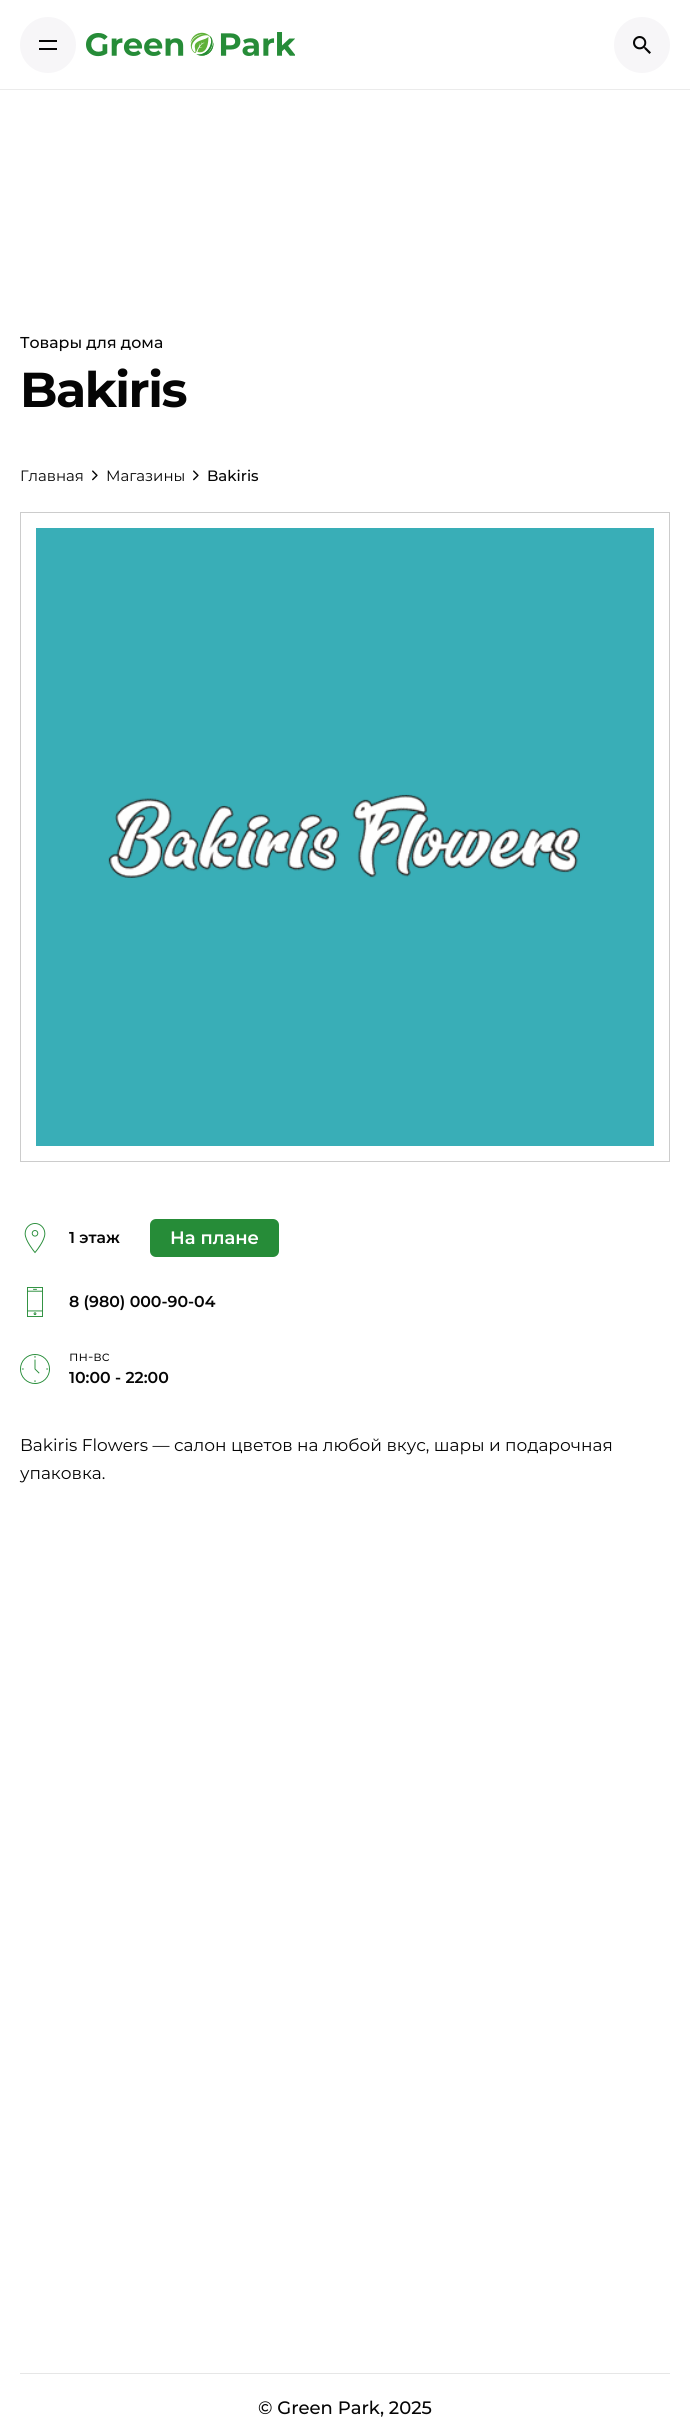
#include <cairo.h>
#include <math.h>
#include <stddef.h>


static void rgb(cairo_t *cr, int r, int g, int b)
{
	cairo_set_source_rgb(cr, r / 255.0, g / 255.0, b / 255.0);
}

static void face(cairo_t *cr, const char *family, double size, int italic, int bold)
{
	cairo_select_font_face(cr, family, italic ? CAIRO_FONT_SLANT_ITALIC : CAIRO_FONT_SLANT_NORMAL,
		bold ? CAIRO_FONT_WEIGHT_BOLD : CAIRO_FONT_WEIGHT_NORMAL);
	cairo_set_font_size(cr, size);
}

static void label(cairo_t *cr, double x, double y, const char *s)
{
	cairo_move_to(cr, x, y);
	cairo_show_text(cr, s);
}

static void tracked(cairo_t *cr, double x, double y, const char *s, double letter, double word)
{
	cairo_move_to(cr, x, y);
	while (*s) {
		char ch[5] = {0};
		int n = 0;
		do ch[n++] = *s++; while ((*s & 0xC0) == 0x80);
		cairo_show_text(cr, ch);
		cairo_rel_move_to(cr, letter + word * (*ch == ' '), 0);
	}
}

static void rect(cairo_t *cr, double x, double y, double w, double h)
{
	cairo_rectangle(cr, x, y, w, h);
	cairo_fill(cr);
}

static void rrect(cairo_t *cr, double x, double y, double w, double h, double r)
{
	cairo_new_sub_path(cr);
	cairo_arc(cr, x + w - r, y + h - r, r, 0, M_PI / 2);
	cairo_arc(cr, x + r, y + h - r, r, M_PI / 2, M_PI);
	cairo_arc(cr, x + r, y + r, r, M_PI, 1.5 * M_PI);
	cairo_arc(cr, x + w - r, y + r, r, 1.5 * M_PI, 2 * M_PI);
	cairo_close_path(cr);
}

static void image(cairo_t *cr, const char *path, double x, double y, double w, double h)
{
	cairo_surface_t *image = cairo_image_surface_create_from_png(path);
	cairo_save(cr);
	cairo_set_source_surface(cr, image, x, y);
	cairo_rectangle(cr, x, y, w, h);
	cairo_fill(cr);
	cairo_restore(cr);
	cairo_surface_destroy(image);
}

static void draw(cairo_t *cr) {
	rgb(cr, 255, 255, 255);
	cairo_paint(cr);
	rgb(cr, 235, 235, 235);
	rect(cr, 0, 89, 690, 1);
	rgb(cr, 247, 246, 248);
	cairo_arc(cr, 48, 45, 28, 0, 2 * M_PI);
	cairo_fill(cr);
	rgb(cr, 5, 5, 5);
	rect(cr, 39, 40, 18, 2);
	rect(cr, 39, 48, 18, 2);
	image(cr, "image0.png", 86, 32, 209, 25);
	rgb(cr, 247, 246, 248);
	cairo_arc(cr, 642, 45, 28, 0, 2 * M_PI);
	cairo_fill(cr);
	image(cr, "image1.png", 633, 36, 18, 18);
	face(cr, "Montserrat Medium", 15.75, 0, 0);
	rgb(cr, 5, 5, 5);
	label(cr, 20, 348, "Товары для дома");
	face(cr, "Montserrat", 49, 0, 1);
	tracked(cr, 20, 407, "Bakiris", -1.5, 0);
	face(cr, "Montserrat", 15, 0, 0);
	label(cr, 20, 481, "Главная");
	image(cr, "image2.png", 92, 470, 6, 11);
	label(cr, 106, 481, "Магазины");
	image(cr, "image2.png", 193, 470, 6, 11);
	face(cr, "Montserrat Medium", 15, 0, 0);
	label(cr, 207, 481, "Bakiris");
	cairo_rectangle(cr, 20.5, 512.5, 649, 649);
	rgb(cr, 204, 204, 204);
	cairo_set_line_width(cr, 1);
	cairo_stroke(cr);
	image(cr, "image3.png", 36, 528, 618, 618);
	image(cr, "image4.png", 24, 1223, 22, 31);
	face(cr, "Montserrat SemiBold", 15.75, 0, 0);
	rgb(cr, 5, 5, 5);
	label(cr, 69, 1243, "1 этаж");
	rgb(cr, 38, 140, 56);
	rrect(cr, 150, 1219, 129, 38, 6);
	cairo_fill(cr);
	face(cr, "Montserrat SemiBold", 18, 0, 0);
	rgb(cr, 255, 255, 255);
	label(cr, 170, 1244, "На плане");
	image(cr, "image5.png", 27, 1287, 16, 30);
	face(cr, "Montserrat SemiBold", 15.75, 0, 0);
	rgb(cr, 5, 5, 5);
	label(cr, 69, 1307, "8 (980) 000-90-04");
	image(cr, "image6.png", 20, 1354, 30, 30);
	face(cr, "Montserrat", 14, 0, 0);
	label(cr, 69, 1361, "пн-вс");
	face(cr, "Montserrat SemiBold", 15.75, 0, 0);
	label(cr, 69, 1383, "10:00 - 22:00");
	face(cr, "Montserrat", 17, 0, 0);
	label(cr, 20, 1451, "Bakiris Flowers — салон цветов на любой вкус, шары и подарочная");
	label(cr, 20, 1479, "упаковка.");
	rgb(cr, 230, 230, 230);
	rect(cr, 20, 2373, 650, 1);
	face(cr, "Montserrat Medium", 18, 0, 0);
	rgb(cr, 5, 5, 5);
	label(cr, 258, 2414, "© Green Park, 2025");
}

int main(void) {
	cairo_surface_t *surface = cairo_image_surface_create(CAIRO_FORMAT_RGB24, 690, 2430);
	cairo_t *cr = cairo_create(surface);
	cairo_font_options_t *options = cairo_font_options_create();
	cairo_font_options_set_hint_metrics(options, CAIRO_HINT_METRICS_OFF);
	cairo_font_options_set_hint_style(options, CAIRO_HINT_STYLE_NONE);
	cairo_set_font_options(cr, options);
	cairo_set_miter_limit(cr, 4);
	draw(cr);
	cairo_surface_write_to_png(surface, "render.png");
	cairo_font_options_destroy(options);
	cairo_destroy(cr);
	cairo_surface_destroy(surface);
	return 0;
}
